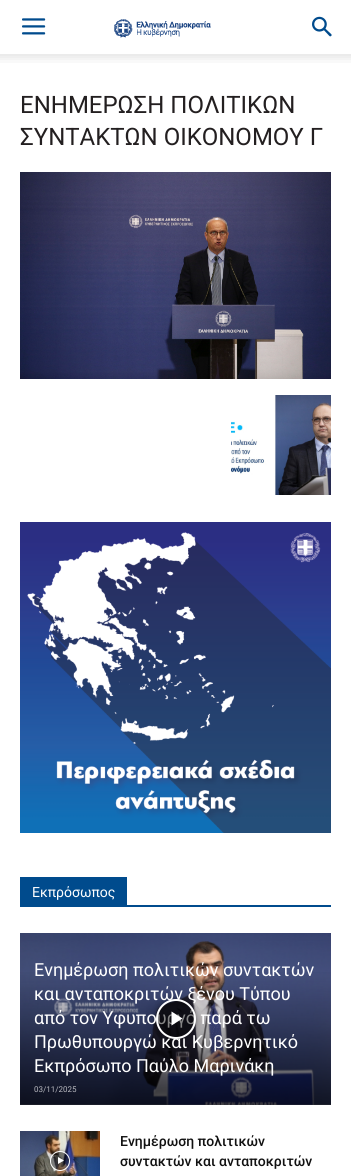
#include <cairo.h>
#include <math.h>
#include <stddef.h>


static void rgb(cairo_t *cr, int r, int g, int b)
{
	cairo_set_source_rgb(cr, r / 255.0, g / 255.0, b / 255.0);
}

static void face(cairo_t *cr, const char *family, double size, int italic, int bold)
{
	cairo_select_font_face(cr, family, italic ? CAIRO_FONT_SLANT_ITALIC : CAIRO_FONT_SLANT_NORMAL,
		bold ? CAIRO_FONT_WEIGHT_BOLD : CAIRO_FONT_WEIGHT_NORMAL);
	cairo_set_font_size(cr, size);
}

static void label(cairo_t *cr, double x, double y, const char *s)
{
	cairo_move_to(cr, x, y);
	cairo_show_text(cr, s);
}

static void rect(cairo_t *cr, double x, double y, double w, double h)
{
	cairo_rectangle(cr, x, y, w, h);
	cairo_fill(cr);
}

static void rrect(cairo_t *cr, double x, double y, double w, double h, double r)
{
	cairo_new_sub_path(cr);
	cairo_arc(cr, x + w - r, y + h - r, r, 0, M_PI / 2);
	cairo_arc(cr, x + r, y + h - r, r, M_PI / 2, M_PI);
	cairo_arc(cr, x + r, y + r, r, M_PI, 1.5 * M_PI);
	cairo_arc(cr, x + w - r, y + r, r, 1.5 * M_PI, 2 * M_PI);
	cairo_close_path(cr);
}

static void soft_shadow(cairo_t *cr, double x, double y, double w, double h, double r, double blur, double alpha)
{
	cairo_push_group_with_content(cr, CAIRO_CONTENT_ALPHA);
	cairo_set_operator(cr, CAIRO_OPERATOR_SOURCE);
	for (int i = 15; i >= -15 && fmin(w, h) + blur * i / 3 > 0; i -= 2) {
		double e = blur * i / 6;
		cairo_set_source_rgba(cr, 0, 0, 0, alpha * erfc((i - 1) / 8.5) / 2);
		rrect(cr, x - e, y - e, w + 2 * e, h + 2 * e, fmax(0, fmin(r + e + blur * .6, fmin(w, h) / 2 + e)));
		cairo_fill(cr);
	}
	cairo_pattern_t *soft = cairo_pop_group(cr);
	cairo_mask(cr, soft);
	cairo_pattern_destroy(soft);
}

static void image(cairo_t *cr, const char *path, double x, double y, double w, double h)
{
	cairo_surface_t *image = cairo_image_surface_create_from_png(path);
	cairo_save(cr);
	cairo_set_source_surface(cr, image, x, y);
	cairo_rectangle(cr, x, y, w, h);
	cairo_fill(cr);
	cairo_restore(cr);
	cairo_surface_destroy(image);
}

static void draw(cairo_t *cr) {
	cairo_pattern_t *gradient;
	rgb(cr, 255, 255, 255);
	cairo_paint(cr);
	image(cr, "image0.png", 22, 18, 24, 17);
	image(cr, "image1.png", 114, 19, 97, 19);
	image(cr, "image2.png", 312, 16, 20, 21);
	image(cr, "image3.png", 0, 54, 351, 9);
	face(cr, "Roboto", 24, 0, 0);
	rgb(cr, 35, 31, 32);
	label(cr, 20, 113, "ΕΝΗΜΕΡΩΣΗ ΠΟΛΙΤΙΚΩΝ");
	label(cr, 20, 145, "ΣΥΝΤΑΚΤΩΝ ΟΙΚΟΝΟΜΟΥ Γ");
	image(cr, "image4.png", 20, 172, 311, 207);
	image(cr, "image5.png", 231, 395, 100, 100);
	image(cr, "image6.png", 20, 522, 311, 311);
	rgb(cr, 0, 75, 141);
	rect(cr, 20, 905, 311, 2);
	rect(cr, 20, 877, 107, 28);
	face(cr, "Roboto", 14, 0, 0);
	rgb(cr, 255, 255, 255);
	label(cr, 32, 897, "Εκπρόσωπος");
	image(cr, "image7.png", 20, 933, 311, 172);
	gradient = cairo_pattern_create_linear(176, 968, 176, 1105);
	cairo_pattern_add_color_stop_rgba(gradient, 0, 0, 0, 0, 0);
	cairo_pattern_add_color_stop_rgba(gradient, 1, 0, 0, 0, 0.7);
	cairo_set_source(cr, gradient);
	cairo_pattern_destroy(gradient);
	rect(cr, 20, 972, 311, 133);
	cairo_save(cr);
	cairo_set_fill_rule(cr, CAIRO_FILL_RULE_EVEN_ODD);
	cairo_new_path(cr);
	cairo_move_to(cr, 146, 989);
	cairo_line_to(cr, 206, 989);
	cairo_line_to(cr, 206, 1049);
	cairo_line_to(cr, 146, 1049);
	cairo_close_path(cr);
	cairo_move_to(cr, 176, 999);
	cairo_curve_to(cr, 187, 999, 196, 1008, 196, 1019);
	cairo_curve_to(cr, 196, 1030, 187, 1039, 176, 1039);
	cairo_curve_to(cr, 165, 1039, 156, 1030, 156, 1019);
	cairo_curve_to(cr, 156, 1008, 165, 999, 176, 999);
	cairo_close_path(cr);
	cairo_clip(cr);
	rgb(cr, 0, 0, 0);
	soft_shadow(cr, 156, 999, 40, 40, 20, 3, 0.4);
	cairo_restore(cr);
	face(cr, "Roboto", 18, 0, 0);
	rgb(cr, 255, 255, 255);
	label(cr, 34, 1000, "και ανταποκριτών ξένου Τύπου");
	label(cr, 34, 1024, "από τον Υφυπουργό παρά τω");
	label(cr, 34, 1048, "Πρωθυπουργώ και Κυβερνητικό");
	cairo_set_source_rgba(cr, 0, 0, 0, 0.48);
	cairo_new_path(cr);
	cairo_arc(cr, 176, 1019, 19, 0, 2 * M_PI);
	cairo_fill_preserve(cr);
	rgb(cr, 255, 255, 255);
	cairo_stroke(cr);
	cairo_new_path(cr);
	cairo_move_to(cr, 171.5, 1011.5);
	cairo_line_to(cr, 171.5, 1025.5);
	cairo_line_to(cr, 182.5, 1018.5);
	cairo_close_path(cr);
	cairo_fill(cr);
	label(cr, 34, 976, "Ενημέρωση πολιτικών συντακτών");
	label(cr, 34, 1072, "Εκπρόσωπο Παύλο Μαρινάκη");
	face(cr, "Roboto", 8, 0, 0);
	rgb(cr, 184, 185, 191);
	label(cr, 34, 1092, "03/11/2025");
	image(cr, "image8.png", 20, 1131, 80, 45);
	cairo_save(cr);
	cairo_set_fill_rule(cr, CAIRO_FILL_RULE_EVEN_ODD);
	cairo_new_path(cr);
	cairo_move_to(cr, 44, 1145);
	cairo_line_to(cr, 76, 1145);
	cairo_line_to(cr, 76, 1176);
	cairo_line_to(cr, 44, 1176);
	cairo_close_path(cr);
	cairo_move_to(cr, 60, 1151);
	cairo_curve_to(cr, 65.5, 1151, 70, 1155.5, 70, 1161);
	cairo_curve_to(cr, 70, 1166.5, 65.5, 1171, 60, 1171);
	cairo_curve_to(cr, 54.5, 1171, 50, 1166.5, 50, 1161);
	cairo_curve_to(cr, 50, 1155.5, 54.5, 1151, 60, 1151);
	cairo_close_path(cr);
	cairo_clip(cr);
	rgb(cr, 0, 0, 0);
	soft_shadow(cr, 50, 1151, 20, 20, 10, 1.5, 0.4);
	cairo_restore(cr);
	cairo_set_source_rgba(cr, 0, 0, 0, 0.48);
	cairo_arc(cr, 60, 1161, 9.5, 0, 2 * M_PI);
	cairo_fill_preserve(cr);
	rgb(cr, 255, 255, 255);
	cairo_set_line_width(cr, 1);
	cairo_stroke(cr);
	cairo_new_path(cr);
	cairo_move_to(cr, 58, 1157);
	cairo_line_to(cr, 58, 1164);
	cairo_line_to(cr, 64, 1160.5);
	cairo_close_path(cr);
	cairo_fill(cr);
	face(cr, "Roboto Medium", 14, 0, 0);
	rgb(cr, 17, 17, 17);
	label(cr, 120, 1146, "Ενημέρωση πολιτικών");
	label(cr, 120, 1166, "συντακτών και ανταποκριτών");
}

int main(void) {
	cairo_surface_t *surface = cairo_image_surface_create(CAIRO_FORMAT_RGB24, 351, 1176);
	cairo_t *cr = cairo_create(surface);
	cairo_font_options_t *options = cairo_font_options_create();
	cairo_font_options_set_hint_metrics(options, CAIRO_HINT_METRICS_OFF);
	cairo_font_options_set_hint_style(options, CAIRO_HINT_STYLE_NONE);
	cairo_set_font_options(cr, options);
	cairo_set_miter_limit(cr, 4);
	draw(cr);
	cairo_surface_write_to_png(surface, "render.png");
	cairo_font_options_destroy(options);
	cairo_destroy(cr);
	cairo_surface_destroy(surface);
	return 0;
}
